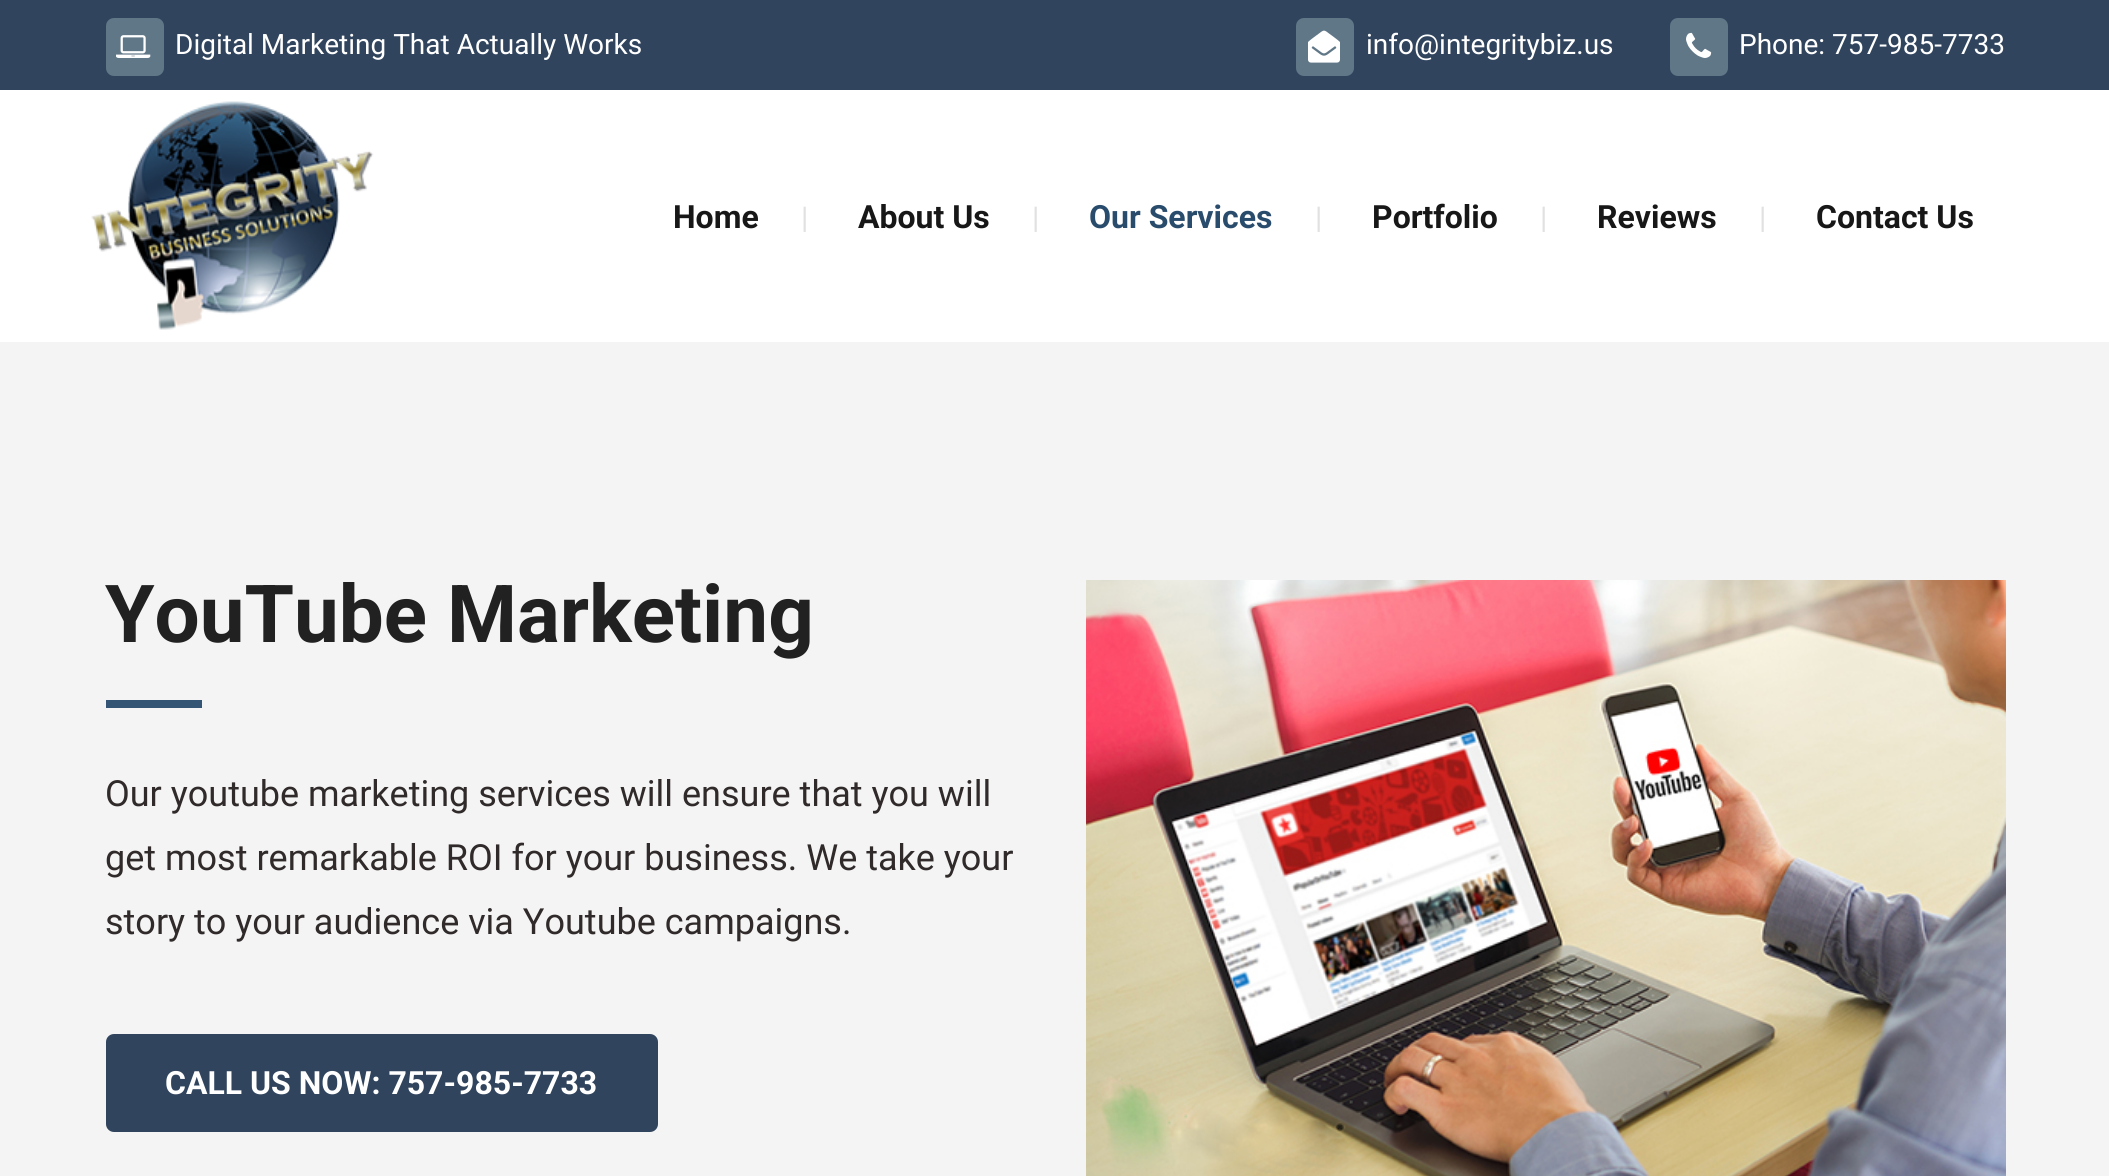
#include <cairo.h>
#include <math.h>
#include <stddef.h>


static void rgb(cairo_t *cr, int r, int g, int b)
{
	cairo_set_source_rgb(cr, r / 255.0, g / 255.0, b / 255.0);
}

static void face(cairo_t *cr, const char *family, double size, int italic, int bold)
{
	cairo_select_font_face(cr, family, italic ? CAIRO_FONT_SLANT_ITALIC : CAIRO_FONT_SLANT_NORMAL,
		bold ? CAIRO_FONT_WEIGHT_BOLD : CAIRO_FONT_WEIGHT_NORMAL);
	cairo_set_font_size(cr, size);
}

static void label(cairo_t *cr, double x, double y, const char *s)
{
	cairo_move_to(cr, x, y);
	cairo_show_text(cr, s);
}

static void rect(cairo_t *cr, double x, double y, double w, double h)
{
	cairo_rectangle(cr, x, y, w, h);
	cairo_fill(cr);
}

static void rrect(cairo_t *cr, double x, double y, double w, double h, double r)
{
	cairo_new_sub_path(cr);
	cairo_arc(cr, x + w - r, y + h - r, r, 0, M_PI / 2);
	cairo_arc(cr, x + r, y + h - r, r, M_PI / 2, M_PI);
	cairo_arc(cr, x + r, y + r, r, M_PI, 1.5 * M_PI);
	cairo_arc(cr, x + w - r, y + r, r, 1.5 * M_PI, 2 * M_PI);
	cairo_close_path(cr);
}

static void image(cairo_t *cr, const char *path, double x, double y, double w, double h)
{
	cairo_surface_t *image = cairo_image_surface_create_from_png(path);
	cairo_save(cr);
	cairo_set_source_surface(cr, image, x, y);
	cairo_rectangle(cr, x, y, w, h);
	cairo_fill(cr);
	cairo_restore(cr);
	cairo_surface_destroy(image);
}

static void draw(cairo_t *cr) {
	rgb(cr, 244, 244, 244);
	cairo_paint(cr);
	rgb(cr, 48, 68, 93);
	rect(cr, 0, 0, 2109, 90);
	rgb(cr, 96, 119, 135);
	rrect(cr, 107, 19, 56, 56, 7);
	cairo_fill_preserve(cr);
	cairo_stroke(cr);
	image(cr, "image0.png", 116, 35, 35, 23);
	face(cr, "Roboto", 28, 0, 0);
	rgb(cr, 255, 255, 255);
	label(cr, 175, 54, "Digital Marketing That Actually Works");
	rgb(cr, 96, 119, 135);
	rrect(cr, 1297, 19, 56, 56, 7);
	cairo_fill_preserve(cr);
	cairo_stroke(cr);
	image(cr, "image1.png", 1308, 30, 32, 33);
	rgb(cr, 255, 255, 255);
	label(cr, 1366, 54, "info@integritybiz.us");
	rgb(cr, 96, 119, 135);
	rrect(cr, 1671, 19, 56, 56, 7);
	cairo_fill_preserve(cr);
	cairo_stroke(cr);
	image(cr, "image2.png", 1686, 32, 26, 26);
	rgb(cr, 255, 255, 255);
	label(cr, 1739, 54, "Phone: 757-985-7733");
	rect(cr, 0, 90, 2109, 252);
	image(cr, "image3.png", 91, 101, 283, 229);
	face(cr, "Roboto", 32, 0, 1);
	rgb(cr, 23, 23, 23);
	label(cr, 673, 228, "Home");
	face(cr, "Roboto", 30, 0, 0);
	rgb(cr, 225, 225, 225);
	label(cr, 801, 228, "|");
	face(cr, "Roboto", 32, 0, 1);
	rgb(cr, 23, 23, 23);
	label(cr, 858, 228, "About Us");
	face(cr, "Roboto", 30, 0, 0);
	rgb(cr, 225, 225, 225);
	label(cr, 1032, 228, "|");
	face(cr, "Roboto", 32, 0, 1);
	rgb(cr, 41, 76, 108);
	label(cr, 1089, 228, "Our Services");
	face(cr, "Roboto", 30, 0, 0);
	rgb(cr, 225, 225, 225);
	label(cr, 1315, 228, "|");
	face(cr, "Roboto", 32, 0, 1);
	rgb(cr, 23, 23, 23);
	label(cr, 1372, 228, "Portfolio");
	face(cr, "Roboto", 30, 0, 0);
	rgb(cr, 225, 225, 225);
	label(cr, 1540, 228, "|");
	face(cr, "Roboto", 32, 0, 1);
	rgb(cr, 23, 23, 23);
	label(cr, 1597, 228, "Reviews");
	face(cr, "Roboto", 30, 0, 0);
	rgb(cr, 225, 225, 225);
	label(cr, 1759, 228, "|");
	face(cr, "Roboto", 32, 0, 1);
	rgb(cr, 23, 23, 23);
	label(cr, 1816, 228, "Contact Us");
	face(cr, "Roboto", 80, 0, 1);
	rgb(cr, 33, 33, 33);
	label(cr, 105, 642, "YouTube Marketing");
	rgb(cr, 52, 85, 115);
	rect(cr, 106, 700, 96, 8);
	face(cr, "Roboto", 36, 0, 0);
	rgb(cr, 48, 42, 42);
	label(cr, 105, 806, "Our youtube marketing services will ensure that you will");
	label(cr, 105, 870, "get most remarkable ROI for your business. We take your");
	label(cr, 105, 934, "story to your audience via Youtube campaigns.");
	rgb(cr, 48, 68, 93);
	rrect(cr, 107, 1035, 550, 96, 7);
	cairo_fill_preserve(cr);
	cairo_stroke(cr);
	face(cr, "Roboto", 32, 0, 1);
	rgb(cr, 255, 255, 255);
	label(cr, 165, 1094, "CALL US NOW: 757-985-7733");
	image(cr, "image4.png", 1086, 580, 920, 596);
}

int main(void) {
	cairo_surface_t *surface = cairo_image_surface_create(CAIRO_FORMAT_RGB24, 2109, 1176);
	cairo_t *cr = cairo_create(surface);
	cairo_font_options_t *options = cairo_font_options_create();
	cairo_font_options_set_hint_metrics(options, CAIRO_HINT_METRICS_OFF);
	cairo_font_options_set_hint_style(options, CAIRO_HINT_STYLE_NONE);
	cairo_set_font_options(cr, options);
	cairo_set_miter_limit(cr, 4);
	draw(cr);
	cairo_surface_write_to_png(surface, "render.png");
	cairo_font_options_destroy(options);
	cairo_destroy(cr);
	cairo_surface_destroy(surface);
	return 0;
}
